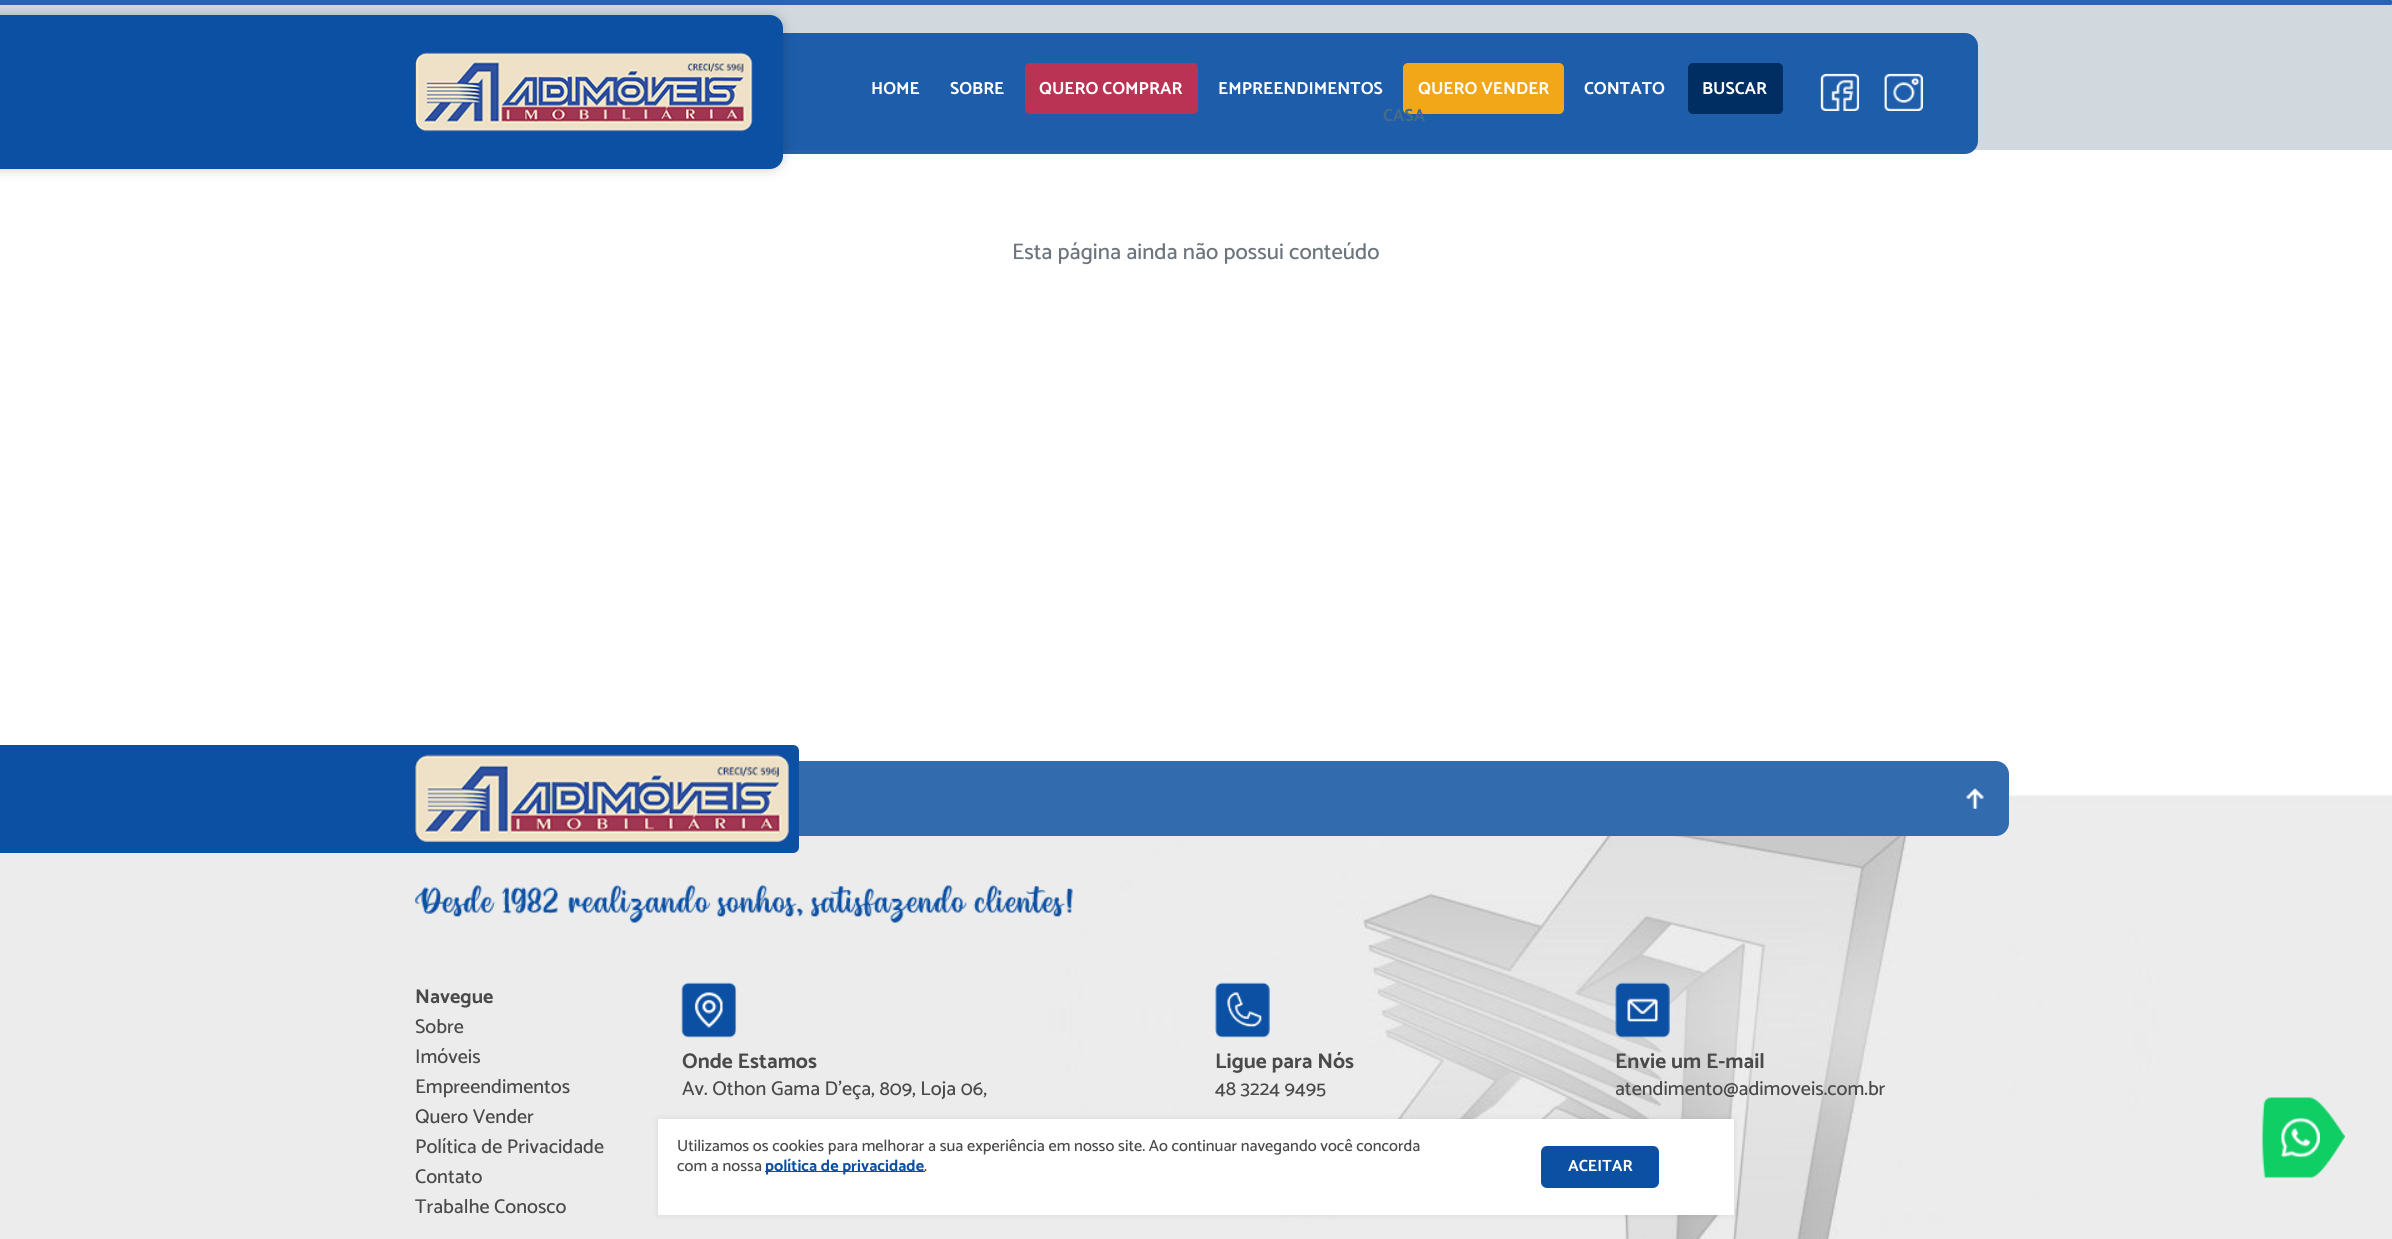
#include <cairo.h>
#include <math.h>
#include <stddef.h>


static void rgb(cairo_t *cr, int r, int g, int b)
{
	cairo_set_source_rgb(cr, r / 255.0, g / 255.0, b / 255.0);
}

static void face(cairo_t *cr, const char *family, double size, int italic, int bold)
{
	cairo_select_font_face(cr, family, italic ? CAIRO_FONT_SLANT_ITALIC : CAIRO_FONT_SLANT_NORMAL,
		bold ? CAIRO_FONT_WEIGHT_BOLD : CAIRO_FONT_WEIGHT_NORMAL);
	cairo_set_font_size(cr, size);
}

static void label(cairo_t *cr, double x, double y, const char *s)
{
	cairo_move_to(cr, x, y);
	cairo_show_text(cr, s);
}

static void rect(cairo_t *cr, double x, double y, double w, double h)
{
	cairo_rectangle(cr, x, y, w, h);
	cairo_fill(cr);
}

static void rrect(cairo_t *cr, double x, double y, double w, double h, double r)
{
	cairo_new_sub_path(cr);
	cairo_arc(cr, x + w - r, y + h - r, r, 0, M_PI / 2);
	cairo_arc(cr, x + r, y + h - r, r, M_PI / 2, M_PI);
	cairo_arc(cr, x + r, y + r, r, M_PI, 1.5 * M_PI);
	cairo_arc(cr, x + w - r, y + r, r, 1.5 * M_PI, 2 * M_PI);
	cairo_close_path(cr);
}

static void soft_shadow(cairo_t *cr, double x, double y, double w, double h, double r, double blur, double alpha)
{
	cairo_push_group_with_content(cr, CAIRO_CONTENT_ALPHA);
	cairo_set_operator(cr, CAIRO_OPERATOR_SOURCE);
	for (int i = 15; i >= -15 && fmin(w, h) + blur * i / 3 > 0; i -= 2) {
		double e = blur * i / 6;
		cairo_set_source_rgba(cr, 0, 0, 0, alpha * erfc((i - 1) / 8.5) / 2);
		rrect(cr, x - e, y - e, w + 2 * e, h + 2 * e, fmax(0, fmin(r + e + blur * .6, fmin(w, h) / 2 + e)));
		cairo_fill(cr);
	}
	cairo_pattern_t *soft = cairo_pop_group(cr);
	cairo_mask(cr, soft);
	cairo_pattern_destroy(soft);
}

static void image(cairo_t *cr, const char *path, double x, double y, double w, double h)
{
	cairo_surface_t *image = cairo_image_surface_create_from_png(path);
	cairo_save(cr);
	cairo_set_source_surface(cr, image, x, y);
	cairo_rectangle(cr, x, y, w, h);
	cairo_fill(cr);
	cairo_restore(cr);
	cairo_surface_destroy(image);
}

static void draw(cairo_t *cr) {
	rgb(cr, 255, 255, 255);
	cairo_paint(cr);
	rgb(cr, 209, 216, 222);
	rect(cr, 0, 0, 2392, 150);
	cairo_set_source_rgba(cr, 0.043, 0.314, 0.639, 0.9);
	cairo_new_path(cr);
	cairo_move_to(cr, -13, 33);
	cairo_line_to(cr, 1965, 33);
	cairo_curve_to(cr, 1972, 33, 1978, 39, 1978, 46);
	cairo_line_to(cr, 1978, 141);
	cairo_curve_to(cr, 1978, 148, 1972, 154, 1965, 154);
	cairo_line_to(cr, -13, 154);
	cairo_close_path(cr);
	cairo_fill(cr);
	rgb(cr, 0, 0, 0);
	soft_shadow(cr, -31, 15, 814, 154, 13, 6, 0.2);
	rgb(cr, 41, 100, 172);
	cairo_new_path(cr);
	cairo_move_to(cr, 0, 0);
	cairo_line_to(cr, 2390.5, 0);
	cairo_curve_to(cr, 2392, 0, 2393, 1, 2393, 2.5);
	cairo_curve_to(cr, 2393, 4, 2392, 5, 2390.5, 5);
	cairo_line_to(cr, 0, 5);
	cairo_close_path(cr);
	cairo_fill(cr);
	rgb(cr, 11, 80, 163);
	cairo_new_path(cr);
	cairo_move_to(cr, -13, 15);
	cairo_line_to(cr, 770, 15);
	cairo_curve_to(cr, 777, 15, 783, 21, 783, 28);
	cairo_line_to(cr, 783, 156);
	cairo_curve_to(cr, 783, 163, 777, 169, 770, 169);
	cairo_line_to(cr, -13, 169);
	cairo_close_path(cr);
	cairo_fill(cr);
	image(cr, "image0.png", 415, 52, 338, 80);
	face(cr, "Catamaran", 17.5, 0, 1);
	rgb(cr, 255, 255, 255);
	label(cr, 871, 94, "HOME");
	label(cr, 950, 94, "SOBRE");
	rgb(cr, 187, 51, 84);
	rrect(cr, 1025, 63, 173, 51, 5);
	cairo_fill(cr);
	rgb(cr, 255, 255, 255);
	label(cr, 1039, 94, "QUERO COMPRAR");
	label(cr, 1218, 94, "EMPREENDIMENTOS");
	rgb(cr, 241, 167, 24);
	rrect(cr, 1403, 63, 161, 51, 5);
	cairo_fill(cr);
	rgb(cr, 255, 255, 255);
	label(cr, 1418, 94, "QUERO VENDER");
	label(cr, 1584, 94, "CONTATO");
	rgb(cr, 0, 45, 98);
	rrect(cr, 1688, 63, 95, 51, 5);
	cairo_fill(cr);
	rgb(cr, 255, 255, 255);
	label(cr, 1702, 94, "BUSCAR");
	image(cr, "image1.png", 1820, 73, 40, 38);
	image(cr, "image2.png", 1884, 73, 39, 38);
	rgb(cr, 69, 107, 143);
	label(cr, 1383, 121, "CASA");
	face(cr, "Catamaran Medium", 22.5, 0, 0);
	rgb(cr, 108, 117, 125);
	label(cr, 1012, 259, "Esta página ainda não possui conteúdo");
	image(cr, "image4.png", 0, 795, 2392, 444);
	rgb(cr, 51, 107, 175);
	cairo_new_path(cr);
	cairo_move_to(cr, -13, 761);
	cairo_line_to(cr, 1996, 761);
	cairo_curve_to(cr, 2003, 761, 2009, 767, 2009, 774);
	cairo_line_to(cr, 2009, 823);
	cairo_curve_to(cr, 2009, 830, 2003, 836, 1996, 836);
	cairo_line_to(cr, -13, 836);
	cairo_close_path(cr);
	cairo_fill(cr);
	image(cr, "image3.png", 1966, 788, 18, 21);
	rgb(cr, 11, 80, 163);
	cairo_new_path(cr);
	cairo_move_to(cr, -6, 745);
	cairo_line_to(cr, 793, 745);
	cairo_curve_to(cr, 796.5, 745, 799, 747.5, 799, 751);
	cairo_line_to(cr, 799, 847);
	cairo_curve_to(cr, 799, 850.5, 796.5, 853, 793, 853);
	cairo_line_to(cr, -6, 853);
	cairo_close_path(cr);
	cairo_fill(cr);
	image(cr, "image5.png", 415, 754, 374, 88);
	image(cr, "image6.png", 415, 885, 658, 38);
	face(cr, "Catamaran", 20, 0, 1);
	rgb(cr, 74, 74, 74);
	label(cr, 415, 1003, "Navegue");
	face(cr, "Catamaran Medium", 20, 0, 0);
	label(cr, 415, 1033, "Sobre");
	label(cr, 415, 1063, "Imóveis");
	label(cr, 415, 1093, "Empreendimentos");
	label(cr, 415, 1123, "Quero Vender");
	label(cr, 415, 1153, "Política de Privacidade");
	label(cr, 415, 1183, "Contato");
	label(cr, 415, 1213, "Trabalhe Conosco");
	image(cr, "image7.png", 681, 982, 56, 56);
	face(cr, "Catamaran", 21.25, 0, 1);
	label(cr, 682, 1068, "Onde Estamos");
	face(cr, "Catamaran Medium", 20, 0, 0);
	label(cr, 682, 1095, "Av. Othon Gama D'eça, 809, Loja 06,");
	image(cr, "image8.png", 1215, 982, 55, 56);
	face(cr, "Catamaran", 21.25, 0, 1);
	label(cr, 1215, 1068, "Ligue para Nós");
	face(cr, "Catamaran Medium", 20, 0, 0);
	label(cr, 1215, 1095, "48 3224 9495");
	image(cr, "image9.png", 1615, 982, 55, 56);
	face(cr, "Catamaran", 21.25, 0, 1);
	label(cr, 1615, 1068, "Envie um E-mail");
	face(cr, "Catamaran Medium", 20, 0, 0);
	label(cr, 1615, 1095, "atendimento@adimoveis.com.br");
	image(cr, "image10.png", 2262, 1097, 83, 81);
	image(cr, "image11.png", 2281, 1118, 39, 40);
	rgb(cr, 0, 0, 0);
	soft_shadow(cr, 658, 1119, 1076, 96, 0, 3, 0.1);
	rgb(cr, 255, 255, 255);
	rect(cr, 658, 1119, 1076, 96);
	face(cr, "Catamaran Medium", 16.25, 0, 0);
	rgb(cr, 74, 74, 74);
	label(cr, 677, 1151, "Utilizamos os cookies para melhorar a sua experiência em nosso site. Ao continuar navegando você concorda");
	label(cr, 677, 1171, "com a nossa");
	rgb(cr, 11, 80, 163);
	rect(cr, 765, 1171, 160, 1);
	face(cr, "Catamaran", 16.25, 0, 1);
	label(cr, 765, 1171, "política de privacidade");
	face(cr, "Catamaran Medium", 16.25, 0, 0);
	rgb(cr, 74, 74, 74);
	label(cr, 924, 1171, ".");
	rgb(cr, 11, 80, 163);
	rrect(cr, 1541, 1146, 118, 42, 6);
	cairo_fill(cr);
	face(cr, "Catamaran", 16.25, 0, 1);
	rgb(cr, 255, 255, 255);
	label(cr, 1568, 1171, "ACEITAR");
}

int main(void) {
	cairo_surface_t *surface = cairo_image_surface_create(CAIRO_FORMAT_RGB24, 2392, 1239);
	cairo_t *cr = cairo_create(surface);
	cairo_font_options_t *options = cairo_font_options_create();
	cairo_font_options_set_hint_metrics(options, CAIRO_HINT_METRICS_OFF);
	cairo_font_options_set_hint_style(options, CAIRO_HINT_STYLE_NONE);
	cairo_set_font_options(cr, options);
	cairo_set_miter_limit(cr, 4);
	draw(cr);
	cairo_surface_write_to_png(surface, "render.png");
	cairo_font_options_destroy(options);
	cairo_destroy(cr);
	cairo_surface_destroy(surface);
	return 0;
}
